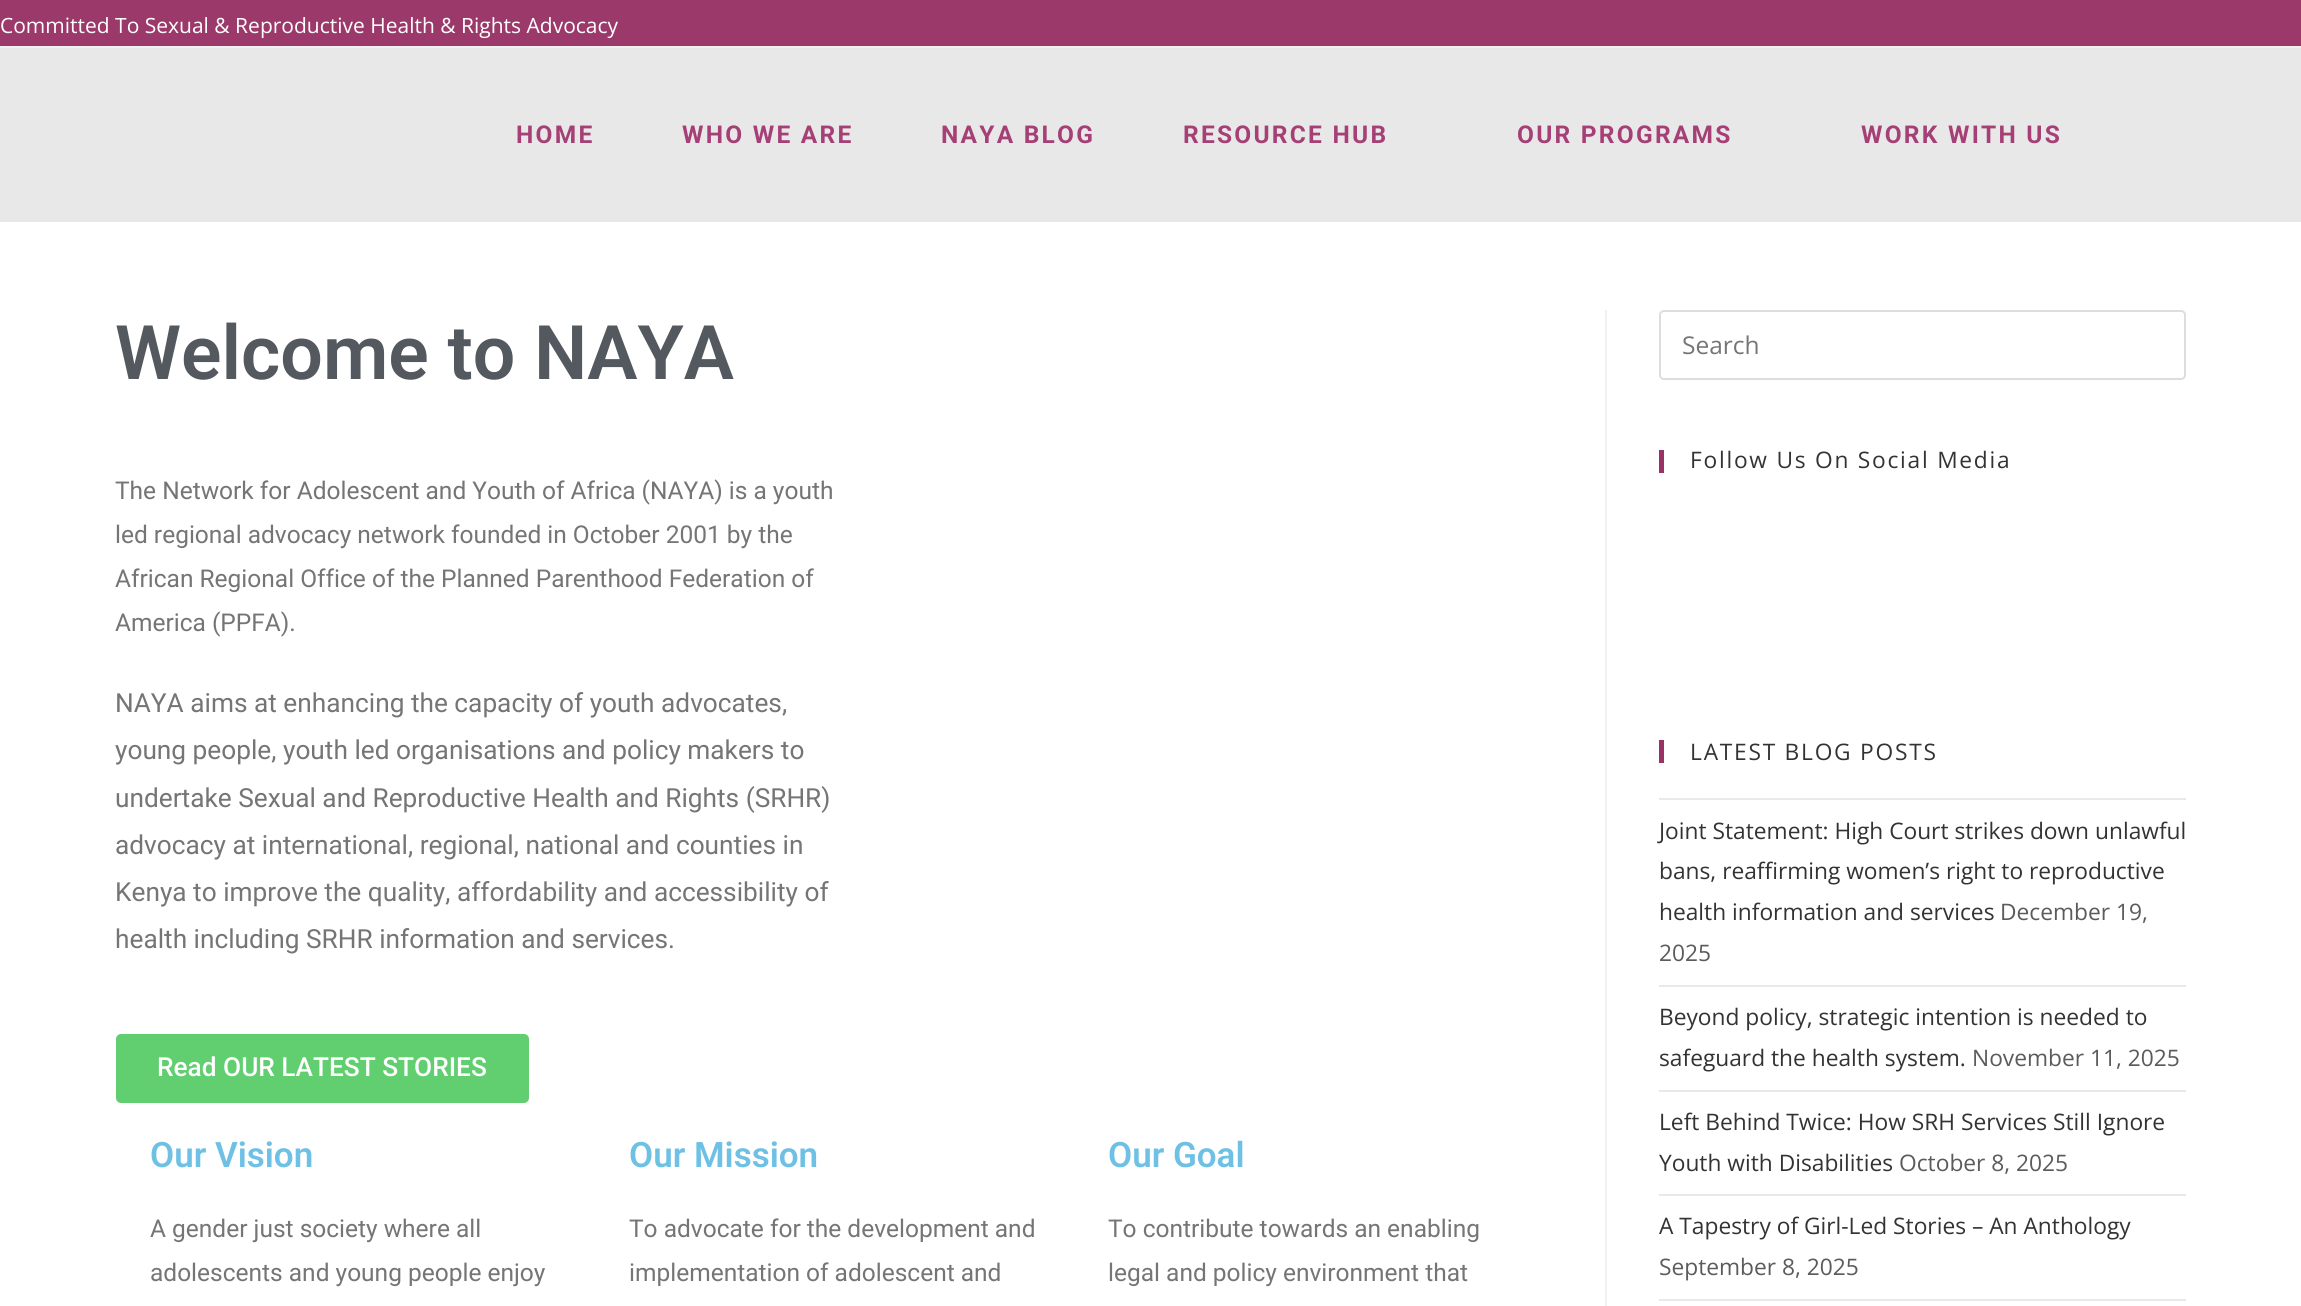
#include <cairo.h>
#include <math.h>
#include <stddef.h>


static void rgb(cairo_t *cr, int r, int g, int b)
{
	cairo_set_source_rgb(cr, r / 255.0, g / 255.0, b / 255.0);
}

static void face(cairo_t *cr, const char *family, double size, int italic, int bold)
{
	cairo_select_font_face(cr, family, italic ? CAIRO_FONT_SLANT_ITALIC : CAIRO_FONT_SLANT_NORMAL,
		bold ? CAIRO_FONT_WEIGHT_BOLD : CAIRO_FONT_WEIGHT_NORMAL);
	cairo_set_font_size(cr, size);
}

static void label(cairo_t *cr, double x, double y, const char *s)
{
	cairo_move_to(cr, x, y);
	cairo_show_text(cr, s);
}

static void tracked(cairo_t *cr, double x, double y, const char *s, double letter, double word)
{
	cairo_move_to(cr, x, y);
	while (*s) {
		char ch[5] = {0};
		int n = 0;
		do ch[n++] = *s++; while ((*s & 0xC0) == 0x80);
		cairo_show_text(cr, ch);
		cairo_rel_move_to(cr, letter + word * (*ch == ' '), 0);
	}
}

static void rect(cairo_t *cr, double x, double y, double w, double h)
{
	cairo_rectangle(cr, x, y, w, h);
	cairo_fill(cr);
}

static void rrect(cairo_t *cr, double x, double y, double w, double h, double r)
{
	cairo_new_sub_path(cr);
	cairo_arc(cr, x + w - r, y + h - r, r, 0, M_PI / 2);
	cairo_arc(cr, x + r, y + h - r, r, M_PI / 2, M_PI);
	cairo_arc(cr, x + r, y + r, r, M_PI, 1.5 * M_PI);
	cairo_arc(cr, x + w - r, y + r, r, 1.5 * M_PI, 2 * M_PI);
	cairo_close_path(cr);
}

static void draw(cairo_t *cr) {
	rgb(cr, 255, 255, 255);
	cairo_paint(cr);
	rgb(cr, 156, 57, 107);
	rect(cr, 0, 0, 2301, 46);
	rgb(cr, 241, 241, 241);
	rect(cr, 0, 46, 2301, 2);
	face(cr, "Open Sans", 21, 0, 0);
	rgb(cr, 255, 255, 255);
	label(cr, 0, 33, "Committed To Sexual & Reproductive Health & Rights Advocacy");
	rgb(cr, 232, 232, 232);
	rect(cr, 0, 48, 2301, 174);
	face(cr, "Roboto", 24.5, 0, 1);
	rgb(cr, 166, 63, 118);
	tracked(cr, 516, 143, "HOME", 2.25, 0);
	tracked(cr, 682, 143, "WHO WE ARE", 2.25, 0);
	tracked(cr, 941, 143, "NAYA BLOG", 2.25, 0);
	tracked(cr, 1183, 143, "RESOURCE HUB", 2.25, 0);
	tracked(cr, 1517, 143, "OUR PROGRAMS", 2.25, 0);
	tracked(cr, 1861, 143, "WORK WITH US", 2.25, 0);
	rgb(cr, 241, 241, 241);
	rect(cr, 1605, 310, 2, 996);
	face(cr, "Roboto SemiBold", 75.25, 0, 0);
	rgb(cr, 84, 89, 95);
	label(cr, 115, 379, "Welcome to NAYA");
	face(cr, "Roboto", 24.5, 0, 0);
	rgb(cr, 117, 117, 117);
	label(cr, 115, 499, "The Network for Adolescent and Youth of Africa (NAYA) is a youth");
	label(cr, 115, 543, "led regional advocacy network founded in October 2001 by the");
	label(cr, 115, 587, "African Regional Office of the Planned Parenthood Federation of");
	label(cr, 115, 631, "America (PPFA).");
	face(cr, "Roboto", 26.25, 0, 0);
	label(cr, 115, 712, "NAYA aims at enhancing the capacity of youth advocates,");
	label(cr, 115, 759, "young people, youth led organisations and policy makers to");
	label(cr, 115, 807, "undertake Sexual and Reproductive Health and Rights (SRHR)");
	label(cr, 115, 854, "advocacy at international, regional, national and counties in");
	label(cr, 115, 901, "Kenya to improve the quality, affordability and accessibility of");
	label(cr, 115, 948, "health including SRHR information and services.");
	rgb(cr, 97, 206, 112);
	rrect(cr, 116, 1034, 413, 69, 5);
	cairo_fill(cr);
	face(cr, "Roboto Medium", 26.25, 0, 0);
	rgb(cr, 255, 255, 255);
	label(cr, 157, 1076, "Read OUR LATEST STORIES");
	face(cr, "Roboto SemiBold", 35, 0, 0);
	rgb(cr, 110, 193, 228);
	label(cr, 150, 1167, "Our Vision");
	face(cr, "Roboto", 24.5, 0, 0);
	rgb(cr, 117, 117, 117);
	label(cr, 150, 1237, "A gender just society where all");
	label(cr, 150, 1281, "adolescents and young people enjoy");
	face(cr, "Roboto SemiBold", 35, 0, 0);
	rgb(cr, 110, 193, 228);
	label(cr, 629, 1167, "Our Mission");
	face(cr, "Roboto", 24.5, 0, 0);
	rgb(cr, 117, 117, 117);
	label(cr, 629, 1237, "To advocate for the development and");
	label(cr, 629, 1281, "implementation of adolescent and");
	face(cr, "Roboto SemiBold", 35, 0, 0);
	rgb(cr, 110, 193, 228);
	label(cr, 1108, 1167, "Our Goal");
	face(cr, "Roboto", 24.5, 0, 0);
	rgb(cr, 117, 117, 117);
	label(cr, 1108, 1237, "To contribute towards an enabling");
	label(cr, 1108, 1281, "legal and policy environment that");
	rrect(cr, 1660, 311, 525, 68, 4);
	rgb(cr, 221, 221, 221);
	cairo_stroke(cr);
	face(cr, "Open Sans", 24.5, 0, 0);
	rgb(cr, 117, 117, 117);
	label(cr, 1682, 354, "Search");
	rgb(cr, 153, 51, 102);
	rect(cr, 1659, 450, 5, 23);
	face(cr, "Open Sans", 22.75, 0, 0);
	rgb(cr, 51, 51, 51);
	tracked(cr, 1690, 468, "Follow Us On Social Media", 1.75, 0);
	rgb(cr, 153, 51, 102);
	rect(cr, 1659, 740, 5, 23);
	rgb(cr, 51, 51, 51);
	tracked(cr, 1690, 760, "LATEST BLOG POSTS", 1.75, 0);
	rgb(cr, 233, 233, 233);
	rect(cr, 1659, 798, 527, 2);
	rect(cr, 1659, 985, 527, 2);
	rgb(cr, 51, 51, 51);
	label(cr, 1659, 839, "Joint Statement: High Court strikes down unlawful");
	label(cr, 1659, 879, "bans, reaffirming women’s right to reproductive");
	label(cr, 1659, 920, "health information and services");
	rgb(cr, 91, 91, 91);
	label(cr, 2000, 920, "December 19,");
	label(cr, 1659, 961, "2025");
	rgb(cr, 233, 233, 233);
	rect(cr, 1659, 1090, 527, 2);
	rgb(cr, 51, 51, 51);
	label(cr, 1659, 1025, "Beyond policy, strategic intention is needed to");
	label(cr, 1659, 1066, "safeguard the health system.");
	rgb(cr, 91, 91, 91);
	label(cr, 1972, 1066, "November 11, 2025");
	rgb(cr, 233, 233, 233);
	rect(cr, 1659, 1194, 527, 2);
	rgb(cr, 51, 51, 51);
	label(cr, 1659, 1130, "Left Behind Twice: How SRH Services Still Ignore");
	label(cr, 1659, 1171, "Youth with Disabilities");
	rgb(cr, 91, 91, 91);
	label(cr, 1899, 1171, "October 8, 2025");
	rgb(cr, 233, 233, 233);
	rect(cr, 1659, 1299, 527, 2);
	rgb(cr, 51, 51, 51);
	label(cr, 1659, 1234, "A Tapestry of Girl-Led Stories – An Anthology");
	rgb(cr, 91, 91, 91);
	label(cr, 1659, 1275, "September 8, 2025");
}

int main(void) {
	cairo_surface_t *surface = cairo_image_surface_create(CAIRO_FORMAT_RGB24, 2301, 1306);
	cairo_t *cr = cairo_create(surface);
	cairo_font_options_t *options = cairo_font_options_create();
	cairo_font_options_set_hint_metrics(options, CAIRO_HINT_METRICS_OFF);
	cairo_font_options_set_hint_style(options, CAIRO_HINT_STYLE_NONE);
	cairo_set_font_options(cr, options);
	cairo_set_miter_limit(cr, 4);
	draw(cr);
	cairo_surface_write_to_png(surface, "render.png");
	cairo_font_options_destroy(options);
	cairo_destroy(cr);
	cairo_surface_destroy(surface);
	return 0;
}
